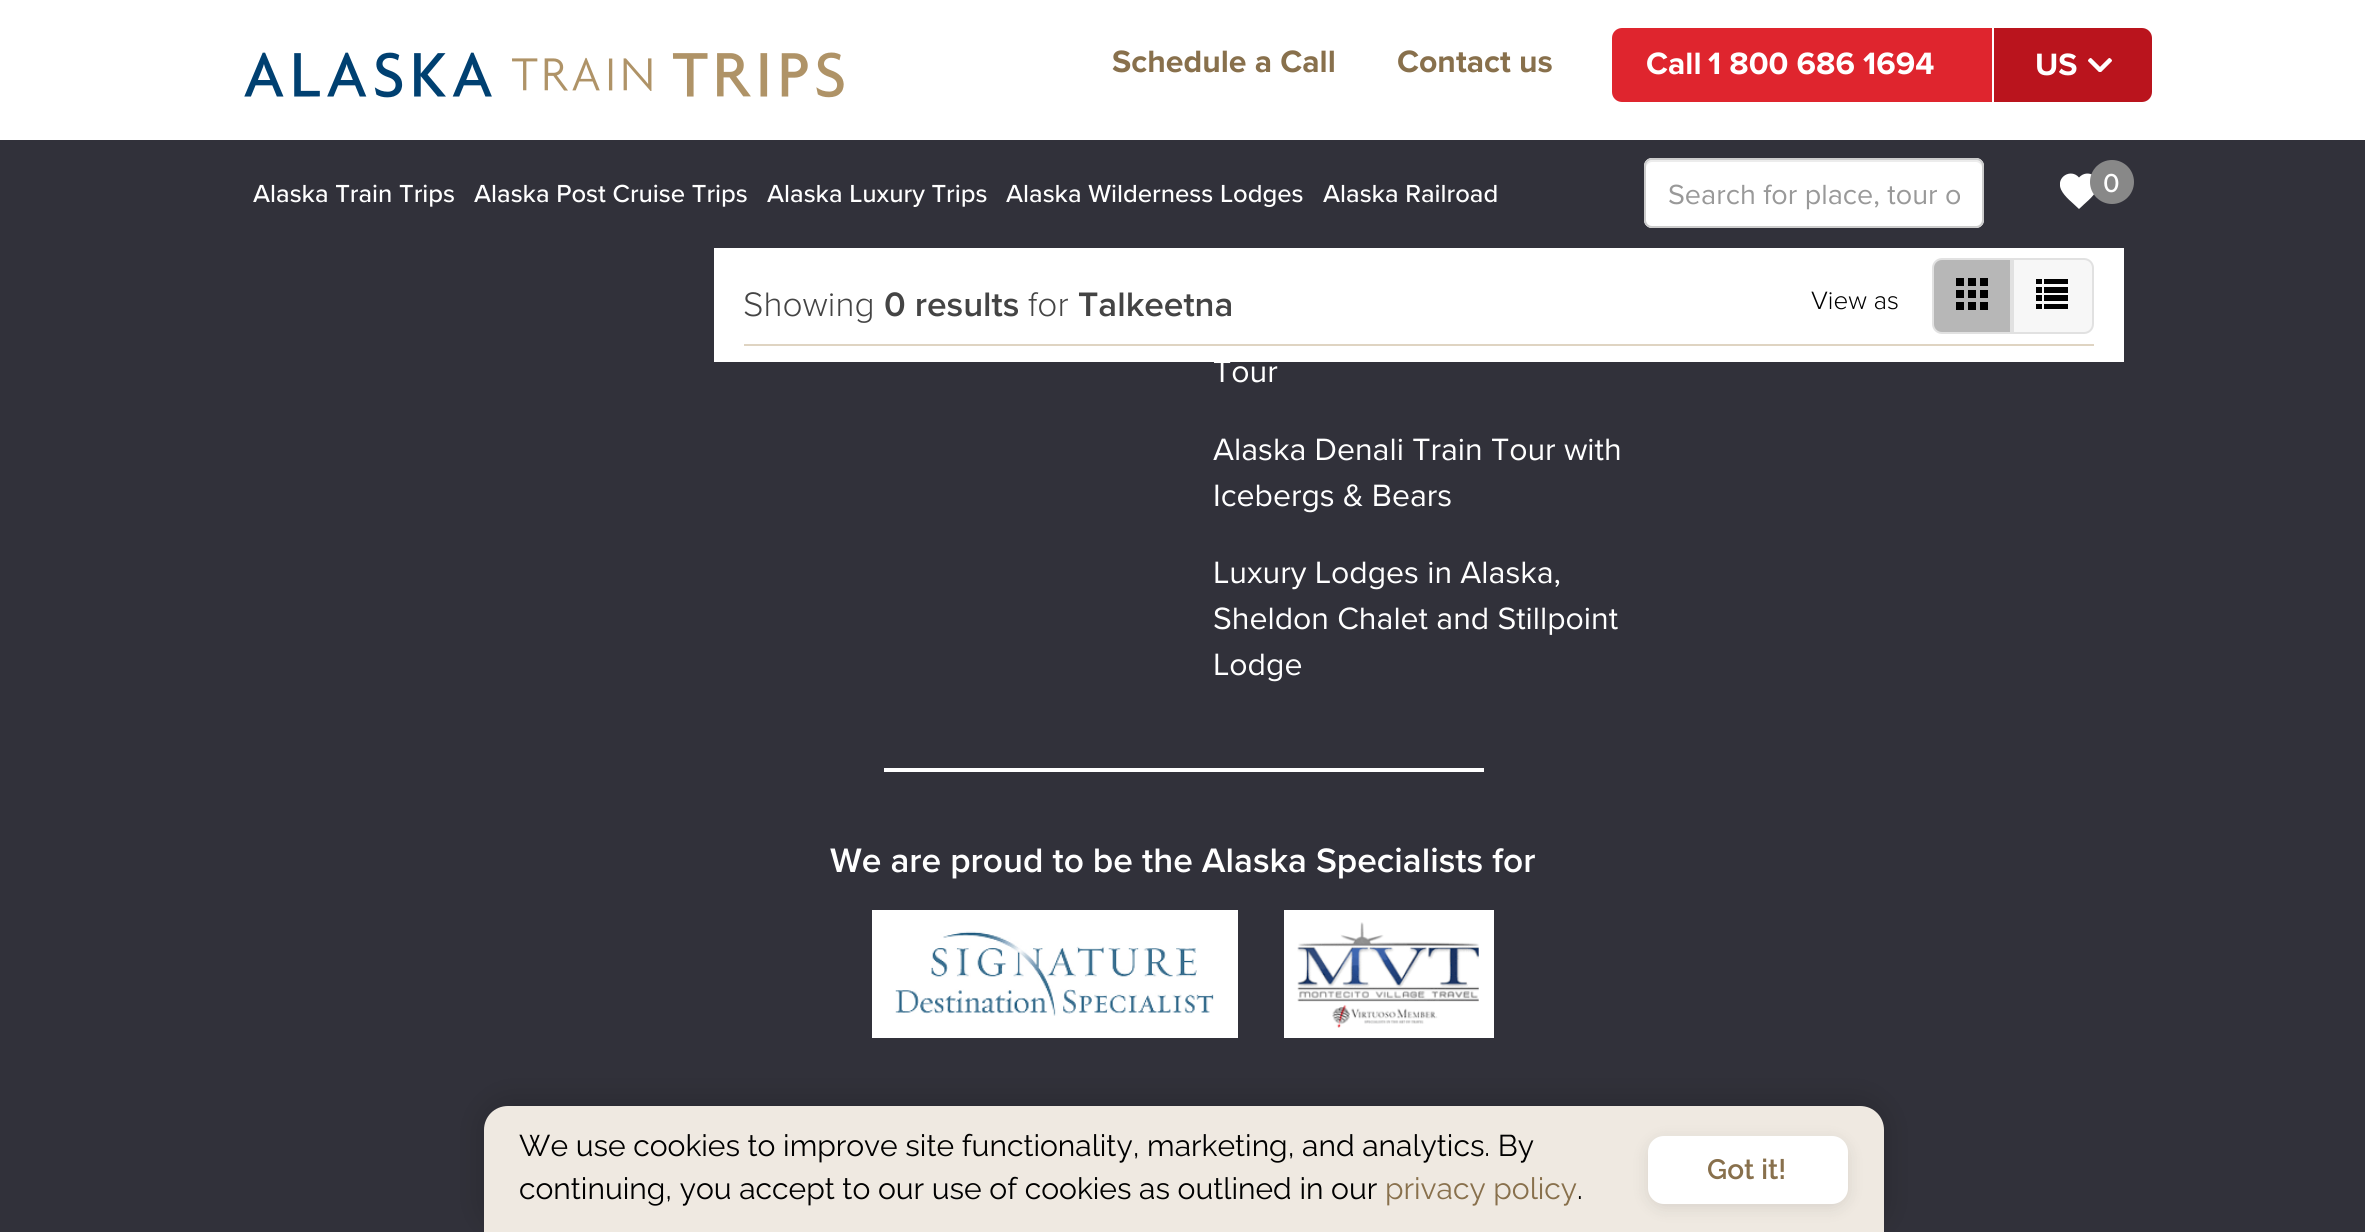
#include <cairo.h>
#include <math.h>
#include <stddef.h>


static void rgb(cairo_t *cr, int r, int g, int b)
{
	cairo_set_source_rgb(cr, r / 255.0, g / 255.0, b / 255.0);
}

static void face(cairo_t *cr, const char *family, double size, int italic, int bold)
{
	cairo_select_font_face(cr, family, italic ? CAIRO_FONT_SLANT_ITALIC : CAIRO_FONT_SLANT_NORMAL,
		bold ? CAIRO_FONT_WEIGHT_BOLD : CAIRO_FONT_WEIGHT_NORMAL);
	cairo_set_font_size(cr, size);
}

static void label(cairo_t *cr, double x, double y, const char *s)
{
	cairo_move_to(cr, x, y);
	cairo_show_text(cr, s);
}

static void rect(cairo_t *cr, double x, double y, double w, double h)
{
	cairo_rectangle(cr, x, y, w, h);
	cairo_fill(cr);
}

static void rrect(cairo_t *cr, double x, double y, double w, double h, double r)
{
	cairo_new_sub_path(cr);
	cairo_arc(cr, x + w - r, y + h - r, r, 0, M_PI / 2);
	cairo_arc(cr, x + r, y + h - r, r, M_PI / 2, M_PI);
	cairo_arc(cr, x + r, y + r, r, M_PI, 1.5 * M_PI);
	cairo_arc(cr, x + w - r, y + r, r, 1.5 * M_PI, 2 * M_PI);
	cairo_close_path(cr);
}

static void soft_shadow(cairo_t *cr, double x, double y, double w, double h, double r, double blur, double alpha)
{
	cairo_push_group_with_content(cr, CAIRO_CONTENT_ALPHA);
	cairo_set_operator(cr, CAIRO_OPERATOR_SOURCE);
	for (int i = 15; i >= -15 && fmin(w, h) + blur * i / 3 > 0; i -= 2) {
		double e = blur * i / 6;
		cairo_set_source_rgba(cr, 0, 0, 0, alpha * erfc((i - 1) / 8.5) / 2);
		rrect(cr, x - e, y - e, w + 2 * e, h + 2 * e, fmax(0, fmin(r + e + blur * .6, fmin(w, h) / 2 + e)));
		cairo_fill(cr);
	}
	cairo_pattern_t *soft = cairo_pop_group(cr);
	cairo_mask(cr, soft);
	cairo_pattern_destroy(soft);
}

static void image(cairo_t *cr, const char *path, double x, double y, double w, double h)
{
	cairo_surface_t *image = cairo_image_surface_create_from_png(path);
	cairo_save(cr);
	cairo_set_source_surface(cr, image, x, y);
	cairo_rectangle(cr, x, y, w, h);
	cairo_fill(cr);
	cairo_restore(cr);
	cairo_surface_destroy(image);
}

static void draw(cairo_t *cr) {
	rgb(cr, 49, 49, 58);
	cairo_paint(cr);
	rgb(cr, 255, 255, 255);
	rect(cr, 0, 0, 2365, 140);
	image(cr, "image0.png", 244, 52, 600, 46);
	face(cr, "Proxima Nova", 32, 0, 1);
	rgb(cr, 136, 112, 76);
	label(cr, 1112, 72, "Schedule a Call");
	label(cr, 1397, 72, "Contact us");
	rgb(cr, 223, 37, 46);
	cairo_new_path(cr);
	cairo_move_to(cr, 1622, 29);
	cairo_line_to(cr, 1995, 29);
	cairo_line_to(cr, 1995, 101);
	cairo_line_to(cr, 1622, 101);
	cairo_curve_to(cr, 1617, 101, 1613, 97, 1613, 92);
	cairo_line_to(cr, 1613, 38);
	cairo_curve_to(cr, 1613, 33, 1617, 29, 1622, 29);
	cairo_close_path(cr);
	cairo_fill_preserve(cr);
	cairo_stroke(cr);
	rgb(cr, 255, 255, 255);
	label(cr, 1646, 74, "Call");
	label(cr, 1708, 74, "1 800 686 1694");
	rgb(cr, 186, 20, 29);
	cairo_new_path(cr);
	cairo_move_to(cr, 1992, 28);
	cairo_line_to(cr, 2142, 28);
	cairo_curve_to(cr, 2147.5, 28, 2152, 32.5, 2152, 38);
	cairo_line_to(cr, 2152, 92);
	cairo_curve_to(cr, 2152, 97.5, 2147.5, 102, 2142, 102);
	cairo_line_to(cr, 1992, 102);
	cairo_close_path(cr);
	cairo_fill(cr);
	rgb(cr, 255, 255, 255);
	rect(cr, 1992, 28, 2, 74);
	label(cr, 2035, 75, "US");
	image(cr, "image1.png", 2088, 58, 24, 14);
	face(cr, "Proxima Nova Medium", 25.6, 0, 0);
	label(cr, 253, 202, "Alaska Train Trips");
	label(cr, 474, 202, "Alaska Post Cruise Trips");
	label(cr, 767, 202, "Alaska Luxury Trips");
	label(cr, 1006, 202, "Alaska Wilderness Lodges");
	label(cr, 1323, 202, "Alaska Railroad");
	rrect(cr, 1644, 158, 340, 70, 8);
	cairo_fill(cr);
	rgb(cr, 236, 236, 236);
	cairo_new_path(cr);
	cairo_move_to(cr, 1652, 162);
	cairo_line_to(cr, 1976, 162);
	cairo_curve_to(cr, 1979, 162, 1982, 165, 1982, 168);
	cairo_line_to(cr, 1982, 166);
	cairo_curve_to(cr, 1982, 163, 1979, 160, 1976, 160);
	cairo_line_to(cr, 1652, 160);
	cairo_curve_to(cr, 1649, 160, 1646, 163, 1646, 166);
	cairo_line_to(cr, 1646, 168);
	cairo_curve_to(cr, 1646, 165, 1649, 162, 1652, 162);
	cairo_close_path(cr);
	cairo_fill(cr);
	rrect(cr, 1645, 159, 338, 68, 7);
	rgb(cr, 204, 204, 204);
	cairo_stroke(cr);
	cairo_save(cr);
	cairo_rectangle(cr, 1668, 172, 292, 44);
	cairo_clip(cr);
	face(cr, "Proxima Nova", 28.75, 0, 0);
	rgb(cr, 153, 153, 153);
	label(cr, 1668, 204, "Search for place, tour o");
	cairo_restore(cr);
	cairo_save(cr);
	cairo_rectangle(cr, 2060, 172, 38, 38);
	cairo_clip(cr);
	rgb(cr, 255, 255, 255);
	cairo_new_path(cr);
	cairo_move_to(cr, 2079, 209);
	cairo_curve_to(cr, 2073, 203, 2064.5, 197, 2061, 189.5);
	cairo_curve_to(cr, 2055.5, 177, 2071, 168, 2079, 177.5);
	cairo_curve_to(cr, 2087.5, 168, 2102.5, 177, 2097, 189.5);
	cairo_curve_to(cr, 2093.5, 197, 2085, 203, 2079, 209);
	cairo_close_path(cr);
	cairo_fill(cr);
	cairo_restore(cr);
	rgb(cr, 136, 136, 136);
	cairo_arc(cr, 2112, 182, 22, 0, 2 * M_PI);
	cairo_fill(cr);
	face(cr, "Proxima Nova Medium", 27, 0, 0);
	rgb(cr, 255, 255, 255);
	label(cr, 2103, 192, "0");
	rect(cr, 714, 248, 1410, 114);
	face(cr, "Proxima Nova Light", 35.2, 0, 0);
	rgb(cr, 68, 68, 68);
	label(cr, 743, 316, "Showing");
	face(cr, "Proxima Nova SemiBold", 35.2, 0, 0);
	label(cr, 884, 316, "0 results");
	face(cr, "Proxima Nova Light", 35.2, 0, 0);
	label(cr, 1028, 316, "for");
	face(cr, "Proxima Nova SemiBold", 35.2, 0, 0);
	label(cr, 1078, 316, "Talkeetna");
	face(cr, "Proxima Nova Light", 26, 0, 0);
	rgb(cr, 0, 0, 0);
	label(cr, 1811, 309, "View as");
	rgb(cr, 183, 183, 183);
	cairo_new_path(cr);
	cairo_move_to(cr, 1942, 259);
	cairo_line_to(cr, 2011, 259);
	cairo_line_to(cr, 2011, 333);
	cairo_line_to(cr, 1942, 333);
	cairo_curve_to(cr, 1937, 333, 1933, 329, 1933, 324);
	cairo_line_to(cr, 1933, 268);
	cairo_curve_to(cr, 1933, 263, 1937, 259, 1942, 259);
	cairo_close_path(cr);
	cairo_fill_preserve(cr);
	rgb(cr, 225, 225, 225);
	cairo_stroke(cr);
	image(cr, "image2.png", 1956, 278, 32, 32);
	rgb(cr, 247, 247, 247);
	cairo_new_path(cr);
	cairo_move_to(cr, 2013, 259);
	cairo_line_to(cr, 2084, 259);
	cairo_curve_to(cr, 2089, 259, 2093, 263, 2093, 268);
	cairo_line_to(cr, 2093, 324);
	cairo_curve_to(cr, 2093, 329, 2089, 333, 2084, 333);
	cairo_line_to(cr, 2013, 333);
	cairo_close_path(cr);
	cairo_fill_preserve(cr);
	rgb(cr, 225, 225, 225);
	cairo_stroke(cr);
	image(cr, "image3.png", 2036, 279, 32, 30);
	rgb(cr, 223, 212, 194);
	rect(cr, 744, 344, 1350, 2);
	face(cr, "Proxima Nova", 32, 0, 0);
	rgb(cr, 255, 255, 255);
	label(cr, 1213, 382, "Tour");
	label(cr, 1213, 460, "Alaska Denali Train Tour with");
	label(cr, 1213, 506, "Icebergs & Bears");
	label(cr, 1213, 583, "Luxury Lodges in Alaska,");
	label(cr, 1213, 629, "Sheldon Chalet and Stillpoint");
	label(cr, 1213, 675, "Lodge");
	rect(cr, 884, 768, 600, 4);
	face(cr, "Proxima Nova SemiBold", 35.2, 0, 0);
	label(cr, 830, 872, "We are proud to be the Alaska Specialists for");
	rect(cr, 872, 910, 366, 128);
	image(cr, "image4.png", 895, 931, 319, 85);
	rect(cr, 1284, 910, 210, 128);
	image(cr, "image5.png", 1297, 922, 182, 106);
	rgb(cr, 0, 0, 0);
	soft_shadow(cr, 484, 1102, 1400, 126, 24, 16, 0.18);
	rgb(cr, 239, 233, 225);
	cairo_new_path(cr);
	cairo_move_to(cr, 508, 1106);
	cairo_line_to(cr, 1860, 1106);
	cairo_curve_to(cr, 1873.5, 1106, 1884, 1116.5, 1884, 1130);
	cairo_line_to(cr, 1884, 1232);
	cairo_line_to(cr, 484, 1232);
	cairo_line_to(cr, 484, 1130);
	cairo_curve_to(cr, 484, 1116.5, 494.5, 1106, 508, 1106);
	cairo_close_path(cr);
	cairo_fill(cr);
	face(cr, "Raleway", 30, 0, 0);
	rgb(cr, 0, 0, 0);
	label(cr, 519, 1156, "We use cookies to improve site functionality, marketing, and analytics. By");
	label(cr, 519, 1199, "continuing, you accept to our use of cookies as outlined in our");
	rgb(cr, 136, 112, 76);
	label(cr, 1385, 1199, "privacy policy");
	rgb(cr, 0, 0, 0);
	label(cr, 1577, 1199, ".");
	rgb(cr, 0, 0, 0);
	soft_shadow(cr, 1648, 1140, 200, 68, 16, 8, 0.1);
	rgb(cr, 255, 255, 255);
	rrect(cr, 1648, 1136, 200, 68, 16);
	cairo_fill(cr);
	face(cr, "Raleway SemiBold", 28, 0, 0);
	rgb(cr, 136, 112, 76);
	label(cr, 1707, 1179, "Got it!");
}

int main(void) {
	cairo_surface_t *surface = cairo_image_surface_create(CAIRO_FORMAT_RGB24, 2365, 1232);
	cairo_t *cr = cairo_create(surface);
	cairo_font_options_t *options = cairo_font_options_create();
	cairo_font_options_set_hint_metrics(options, CAIRO_HINT_METRICS_OFF);
	cairo_font_options_set_hint_style(options, CAIRO_HINT_STYLE_NONE);
	cairo_set_font_options(cr, options);
	cairo_set_miter_limit(cr, 4);
	draw(cr);
	cairo_surface_write_to_png(surface, "render.png");
	cairo_font_options_destroy(options);
	cairo_destroy(cr);
	cairo_surface_destroy(surface);
	return 0;
}
